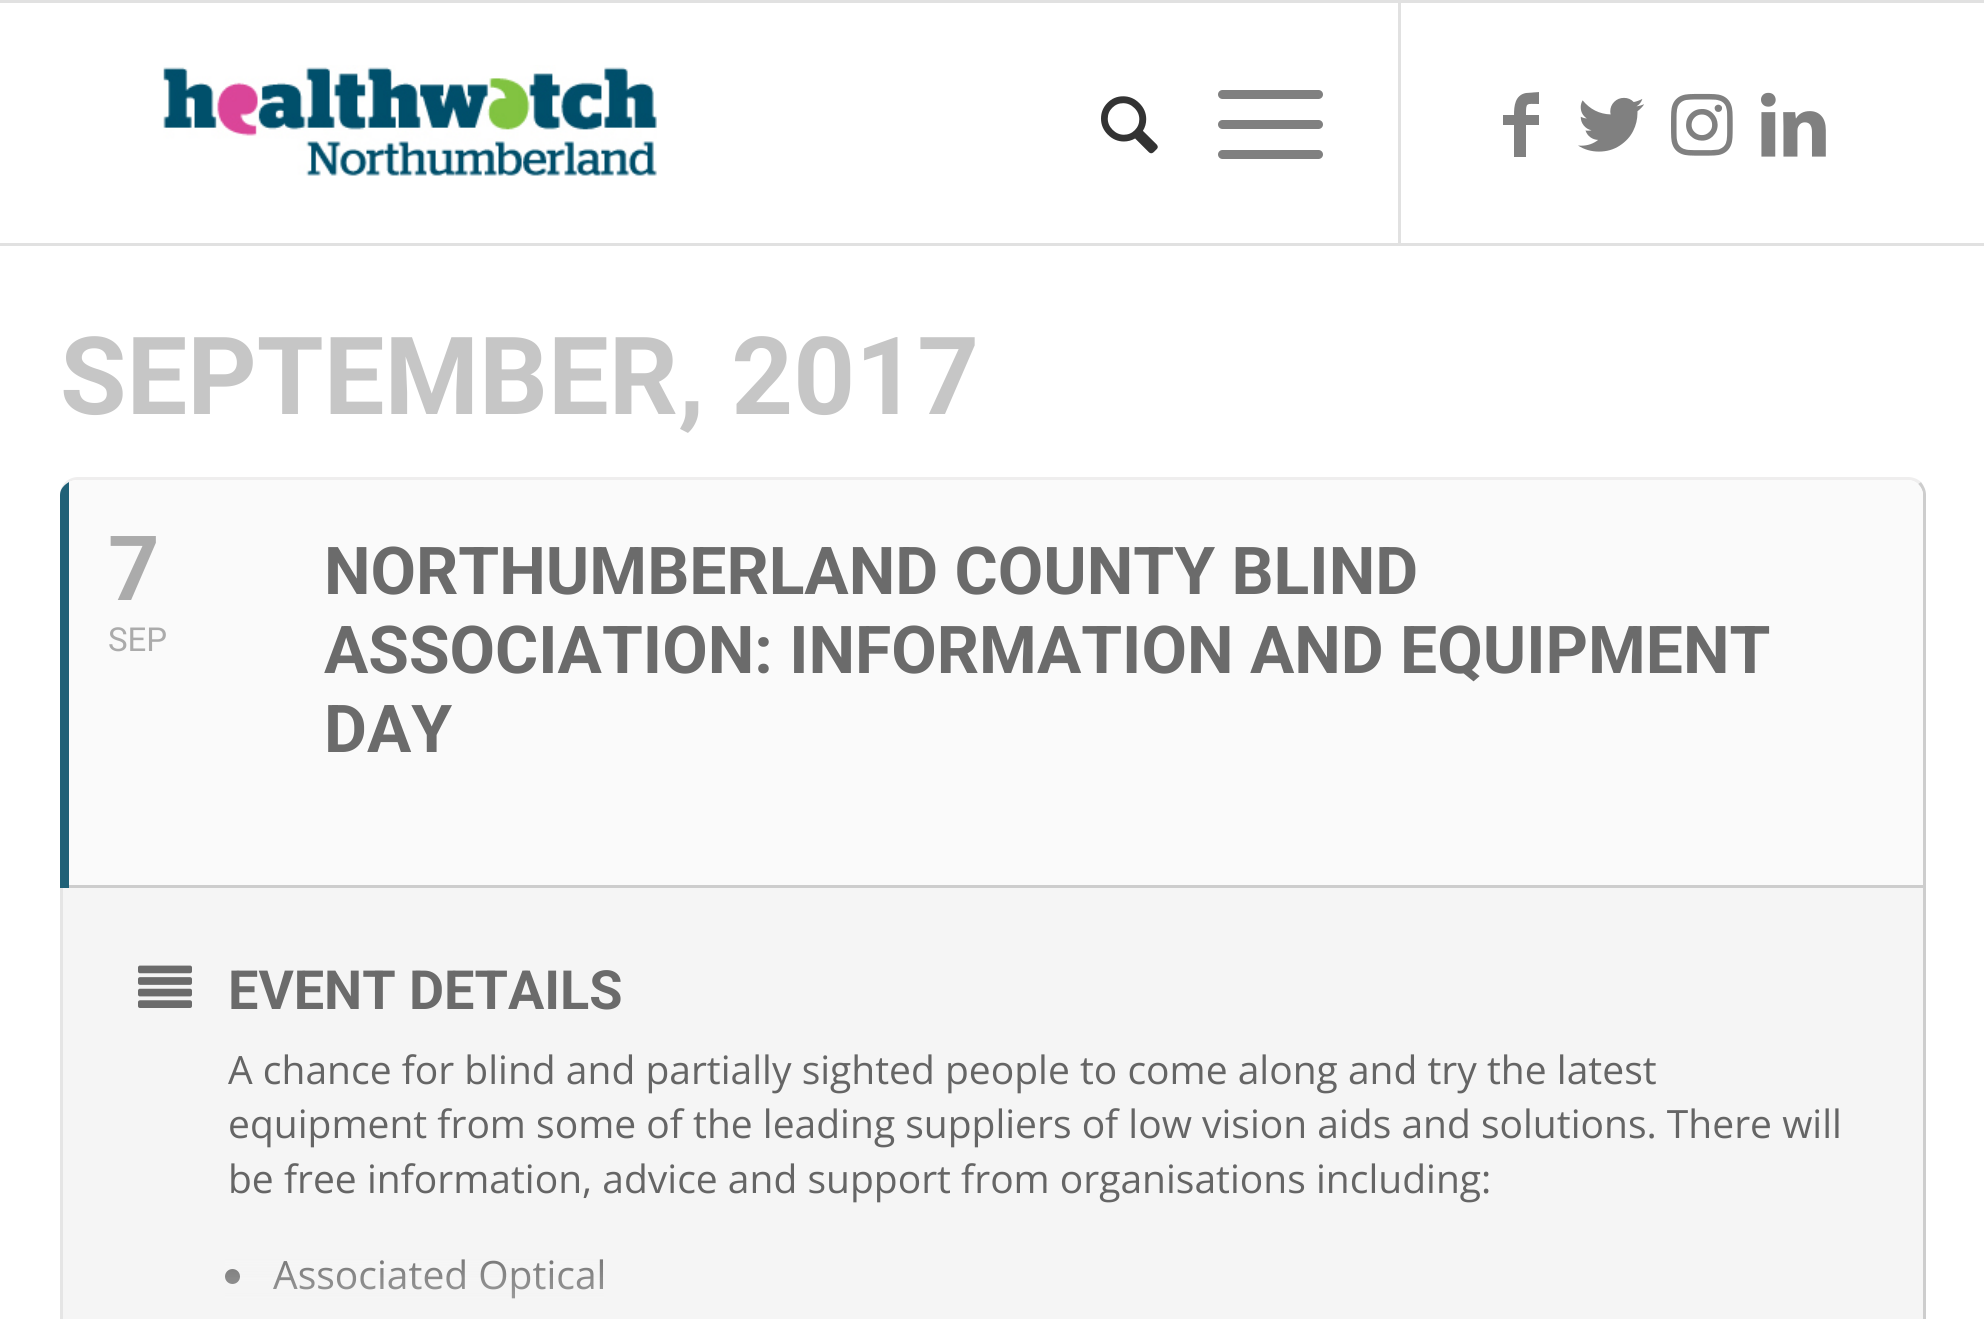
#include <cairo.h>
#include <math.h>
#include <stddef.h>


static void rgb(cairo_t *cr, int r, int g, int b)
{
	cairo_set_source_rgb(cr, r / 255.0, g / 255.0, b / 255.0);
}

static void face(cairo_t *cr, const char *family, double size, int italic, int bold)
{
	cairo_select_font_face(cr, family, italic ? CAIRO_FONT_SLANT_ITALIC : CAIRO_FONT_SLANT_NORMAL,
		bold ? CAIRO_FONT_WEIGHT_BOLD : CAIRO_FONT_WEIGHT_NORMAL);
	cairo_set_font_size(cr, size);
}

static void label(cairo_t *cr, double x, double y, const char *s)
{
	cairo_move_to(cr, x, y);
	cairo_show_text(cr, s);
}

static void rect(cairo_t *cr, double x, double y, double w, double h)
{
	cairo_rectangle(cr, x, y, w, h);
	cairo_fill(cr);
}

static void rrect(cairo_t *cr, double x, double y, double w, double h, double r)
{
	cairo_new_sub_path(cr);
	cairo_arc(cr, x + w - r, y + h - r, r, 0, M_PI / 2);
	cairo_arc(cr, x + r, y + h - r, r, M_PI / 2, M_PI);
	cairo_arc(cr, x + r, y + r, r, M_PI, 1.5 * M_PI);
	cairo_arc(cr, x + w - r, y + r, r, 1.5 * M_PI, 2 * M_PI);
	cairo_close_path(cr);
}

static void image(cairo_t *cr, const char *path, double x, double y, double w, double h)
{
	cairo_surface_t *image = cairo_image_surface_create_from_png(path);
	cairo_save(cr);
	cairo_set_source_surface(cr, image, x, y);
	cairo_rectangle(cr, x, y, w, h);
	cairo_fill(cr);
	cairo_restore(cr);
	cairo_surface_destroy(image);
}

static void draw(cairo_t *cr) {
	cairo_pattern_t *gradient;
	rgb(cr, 255, 255, 255);
	cairo_paint(cr);
	rgb(cr, 225, 225, 225);
	rect(cr, 0, 0, 1984, 3);
	rect(cr, 0, 243, 1984, 3);
	image(cr, "image0.png", 163, 65, 494, 111);
	rect(cr, 1398, 3, 3, 240);
	image(cr, "image1.png", 1101, 96, 57, 58);
	rgb(cr, 128, 128, 128);
	rrect(cr, 1218, 120, 105, 9, 4.5);
	cairo_fill(cr);
	rrect(cr, 1218, 90, 105, 9, 4.5);
	cairo_fill(cr);
	rrect(cr, 1218, 150, 105, 9, 4.5);
	cairo_fill(cr);
	cairo_new_path(cr);
	cairo_move_to(cr, 1539, 104);
	cairo_curve_to(cr, 1526, 104, 1526, 102, 1526, 115);
	cairo_line_to(cr, 1539, 115);
	cairo_line_to(cr, 1539, 125);
	cairo_line_to(cr, 1526, 125);
	cairo_line_to(cr, 1526, 157);
	cairo_line_to(cr, 1514, 157);
	cairo_line_to(cr, 1514, 125);
	cairo_line_to(cr, 1503, 125);
	cairo_line_to(cr, 1503, 115);
	cairo_line_to(cr, 1514, 115);
	cairo_curve_to(cr, 1514, 106, 1515, 95, 1526, 93);
	cairo_line_to(cr, 1539, 92);
	cairo_close_path(cr);
	cairo_fill(cr);
	image(cr, "image2.png", 1578, 97, 66, 55);
	image(cr, "image3.png", 1671, 93, 62, 63);
	image(cr, "image4.png", 1761, 92, 65, 65);
	face(cr, "Roboto", 108, 0, 1);
	rgb(cr, 198, 198, 198);
	label(cr, 60, 414, "SEPTEMBER, 2017");
	rgb(cr, 239, 238, 238);
	cairo_new_path(cr);
	cairo_move_to(cr, 78, 477);
	cairo_line_to(cr, 1908, 477);
	cairo_curve_to(cr, 1913, 477, 1918, 479, 1921, 482);
	cairo_line_to(cr, 1918, 484);
	cairo_curve_to(cr, 1916, 482, 1912, 480, 1908, 480);
	cairo_line_to(cr, 78, 480);
	cairo_curve_to(cr, 68, 480, 60, 487, 60, 495);
	cairo_curve_to(cr, 60, 485, 68, 477, 78, 477);
	cairo_close_path(cr);
	cairo_fill(cr);
	rgb(cr, 205, 205, 205);
	cairo_new_path(cr);
	cairo_move_to(cr, 1921, 482);
	cairo_line_to(cr, 1918, 484);
	cairo_curve_to(cr, 1921, 487, 1923, 491, 1923, 495);
	cairo_line_to(cr, 1923, 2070);
	cairo_curve_to(cr, 1923, 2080, 1916, 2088, 1908, 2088);
	cairo_curve_to(cr, 1918, 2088, 1926, 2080, 1926, 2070);
	cairo_line_to(cr, 1926, 495);
	cairo_curve_to(cr, 1926, 490, 1924, 486, 1921, 482);
	cairo_close_path(cr);
	cairo_fill(cr);
	rgb(cr, 250, 250, 250);
	cairo_new_path(cr);
	cairo_move_to(cr, 78, 480);
	cairo_curve_to(cr, 68, 480, 60, 487, 60, 495);
	cairo_line_to(cr, 60, 888);
	cairo_line_to(cr, 1923, 888);
	cairo_line_to(cr, 1923, 495);
	cairo_curve_to(cr, 1923, 487, 1916, 480, 1908, 480);
	cairo_close_path(cr);
	cairo_fill(cr);
	rgb(cr, 32, 97, 119);
	cairo_new_path(cr);
	cairo_move_to(cr, 69, 482);
	cairo_curve_to(cr, 64, 485, 60, 489, 60, 495);
	cairo_line_to(cr, 60, 888);
	cairo_line_to(cr, 69, 888);
	cairo_close_path(cr);
	cairo_fill(cr);
	face(cr, "Roboto", 90, 0, 1);
	rgb(cr, 171, 171, 171);
	label(cr, 108, 600, "7");
	face(cr, "Roboto", 33, 0, 0);
	label(cr, 108, 651, "SEP");
	face(cr, "Roboto", 66, 0, 1);
	rgb(cr, 107, 107, 107);
	label(cr, 324, 594, "NORTHUMBERLAND COUNTY BLIND");
	label(cr, 324, 673, "ASSOCIATION: INFORMATION AND EQUIPMENT");
	label(cr, 324, 752, "DAY");
	rgb(cr, 205, 205, 205);
	rect(cr, 69, 885, 1854, 3);
	rgb(cr, 245, 245, 245);
	cairo_new_path(cr);
	cairo_move_to(cr, 60, 888);
	cairo_line_to(cr, 60, 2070);
	cairo_curve_to(cr, 60, 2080, 68, 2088, 78, 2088);
	cairo_line_to(cr, 1908, 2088);
	cairo_curve_to(cr, 1916, 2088, 1923, 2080, 1923, 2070);
	cairo_line_to(cr, 1923, 888);
	cairo_close_path(cr);
	cairo_fill(cr);
	rgb(cr, 229, 229, 229);
	cairo_new_path(cr);
	cairo_move_to(cr, 60, 888);
	cairo_line_to(cr, 60, 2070);
	cairo_curve_to(cr, 60, 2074, 61, 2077, 63, 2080);
	cairo_line_to(cr, 63, 888);
	cairo_close_path(cr);
	cairo_fill(cr);
	image(cr, "image5.png", 138, 965, 54, 43);
	face(cr, "Roboto", 54, 0, 1);
	rgb(cr, 107, 107, 107);
	label(cr, 228, 1009, "EVENT DETAILS");
	face(cr, "Open Sans", 39, 0, 0);
	rgb(cr, 101, 101, 101);
	label(cr, 228, 1084, "A chance for blind and partially sighted people to come along and try the latest");
	label(cr, 228, 1138, "equipment from some of the leading suppliers of low vision aids and solutions. There will");
	label(cr, 228, 1193, "be free information, advice and support from organisations including:");
	cairo_new_path(cr);
	cairo_arc(cr, 232.5, 1276.5, 7.5, 0, 2 * M_PI);
	cairo_fill(cr);
	label(cr, 273, 1289, "Associated Optical");
	gradient = cairo_pattern_create_linear(993, 1233, 993, 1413);
	cairo_pattern_add_color_stop_rgba(gradient, 0, 0.961, 0.961, 0.961, 0);
	cairo_pattern_add_color_stop_rgba(gradient, 0.01, 0.961, 0.961, 0.961, 0.01);
	cairo_pattern_add_color_stop_rgba(gradient, 1, 0.961, 0.961, 0.961, 1);
	cairo_set_source(cr, gradient);
	cairo_pattern_destroy(gradient);
	rect(cr, 225, 1259, 379, 40);
}

int main(void) {
	cairo_surface_t *surface = cairo_image_surface_create(CAIRO_FORMAT_RGB24, 1984, 1319);
	cairo_t *cr = cairo_create(surface);
	cairo_font_options_t *options = cairo_font_options_create();
	cairo_font_options_set_hint_metrics(options, CAIRO_HINT_METRICS_OFF);
	cairo_font_options_set_hint_style(options, CAIRO_HINT_STYLE_NONE);
	cairo_set_font_options(cr, options);
	cairo_set_miter_limit(cr, 4);
	draw(cr);
	cairo_surface_write_to_png(surface, "render.png");
	cairo_font_options_destroy(options);
	cairo_destroy(cr);
	cairo_surface_destroy(surface);
	return 0;
}
